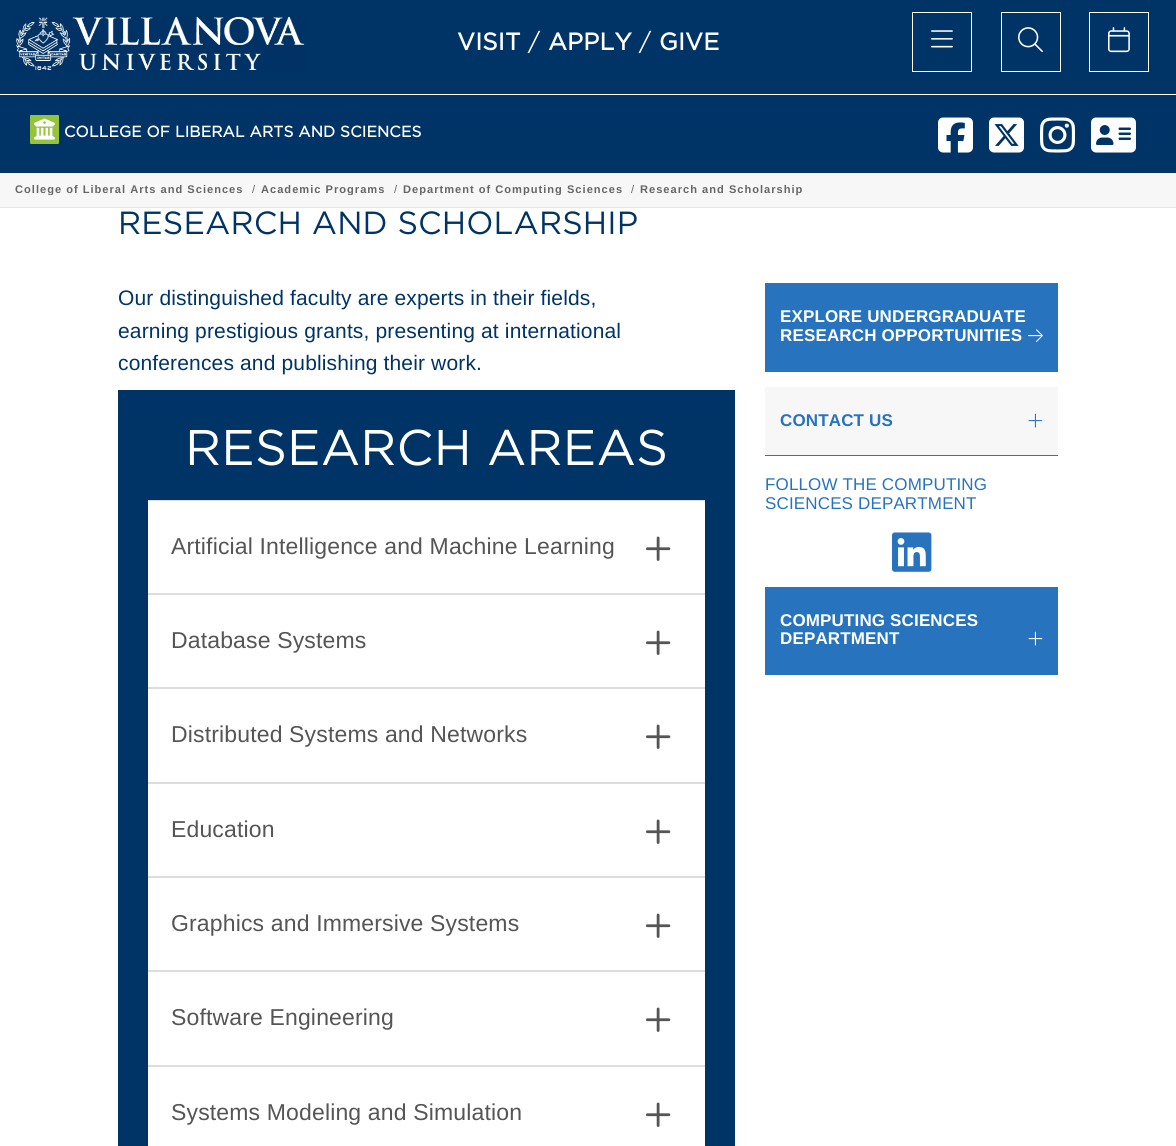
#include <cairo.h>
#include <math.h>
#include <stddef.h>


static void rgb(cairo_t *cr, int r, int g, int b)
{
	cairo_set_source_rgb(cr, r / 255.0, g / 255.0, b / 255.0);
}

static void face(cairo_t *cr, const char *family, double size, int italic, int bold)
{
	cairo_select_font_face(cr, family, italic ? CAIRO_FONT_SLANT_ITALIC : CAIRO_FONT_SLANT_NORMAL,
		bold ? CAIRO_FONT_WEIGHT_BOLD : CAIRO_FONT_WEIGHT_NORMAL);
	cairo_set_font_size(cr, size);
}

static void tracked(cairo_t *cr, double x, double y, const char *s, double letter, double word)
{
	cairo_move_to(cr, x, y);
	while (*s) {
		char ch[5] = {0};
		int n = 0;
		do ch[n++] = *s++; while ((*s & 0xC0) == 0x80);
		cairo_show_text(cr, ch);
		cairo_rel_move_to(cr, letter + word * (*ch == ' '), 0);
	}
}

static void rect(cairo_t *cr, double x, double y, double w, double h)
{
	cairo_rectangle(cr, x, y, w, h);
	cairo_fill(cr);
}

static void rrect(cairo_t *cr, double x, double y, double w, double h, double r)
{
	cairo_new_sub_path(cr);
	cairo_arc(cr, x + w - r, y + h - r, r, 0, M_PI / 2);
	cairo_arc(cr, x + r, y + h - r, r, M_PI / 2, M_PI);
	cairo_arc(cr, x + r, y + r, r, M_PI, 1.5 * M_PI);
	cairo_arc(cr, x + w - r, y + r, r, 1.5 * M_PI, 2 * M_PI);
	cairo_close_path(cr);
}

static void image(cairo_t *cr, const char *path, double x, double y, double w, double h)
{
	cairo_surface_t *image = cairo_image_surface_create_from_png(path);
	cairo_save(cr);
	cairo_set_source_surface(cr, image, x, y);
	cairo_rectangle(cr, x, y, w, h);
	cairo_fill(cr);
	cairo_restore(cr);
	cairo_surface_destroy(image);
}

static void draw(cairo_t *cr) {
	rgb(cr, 255, 255, 255);
	cairo_paint(cr);
	rgb(cr, 0, 51, 102);
	rect(cr, 0, 0, 1176, 173);
	image(cr, "image0.png", 15, 16, 290, 55);
	face(cr, "Gotham", 24, 0, 1);
	rgb(cr, 255, 255, 255);
	tracked(cr, 457, 50, "VISIT", 0.15, 0);
	face(cr, "Gotham", 24, 0, 0);
	tracked(cr, 528, 50, "/", 0.15, 0);
	face(cr, "Gotham", 24, 0, 1);
	tracked(cr, 548, 50, "APPLY", 0.15, 0);
	face(cr, "Gotham", 24, 0, 0);
	tracked(cr, 639, 50, "/", 0.15, 0);
	face(cr, "Gotham", 24, 0, 1);
	tracked(cr, 659, 50, "GIVE", 0.15, 0);
	cairo_rectangle(cr, 912.5, 12.5, 59, 59);
	cairo_set_line_width(cr, 1);
	cairo_stroke(cr);
	image(cr, "image1.png", 931, 30, 22, 18);
	cairo_rectangle(cr, 1001.5, 12.5, 59, 59);
	cairo_stroke(cr);
	image(cr, "image2.png", 1018, 27, 25, 26);
	cairo_rectangle(cr, 1089.5, 12.5, 59, 59);
	cairo_stroke(cr);
	image(cr, "image3.png", 1108, 27, 22, 26);
	rect(cr, 0, 94, 1176, 1);
	rgb(cr, 147, 196, 59);
	rrect(cr, 30, 115, 29, 29, 1);
	cairo_fill(cr);
	image(cr, "image4.png", 34, 118, 21, 22);
	face(cr, "Gotham", 15.5, 0, 1);
	rgb(cr, 255, 255, 255);
	tracked(cr, 64, 137, "COLLEGE OF LIBERAL ARTS AND SCIENCES", 0.15, 0);
	image(cr, "image5.png", 938, 117, 35, 36);
	image(cr, "image6.png", 989, 117, 35, 36);
	image(cr, "image7.png", 1040, 117, 35, 36);
	image(cr, "image8.png", 1091, 117, 45, 36);
	rgb(cr, 247, 247, 247);
	rect(cr, 0, 173, 1176, 34);
	rgb(cr, 228, 228, 228);
	rect(cr, 0, 207, 1176, 1);
	cairo_save(cr);
	cairo_rectangle(cr, 15, 183, 246, 12);
	cairo_clip(cr);
	face(cr, "Liberation Sans", 11.1, 0, 1);
	rgb(cr, 102, 102, 102);
	tracked(cr, 15, 193, "College of Liberal Arts and Sciences", 1, 0);
	cairo_restore(cr);
	face(cr, "Liberation Sans", 11.1, 0, 0);
	rgb(cr, 102, 102, 102);
	tracked(cr, 252, 193, "/", 1, 0);
	cairo_save(cr);
	cairo_rectangle(cr, 261, 183, 142, 12);
	cairo_clip(cr);
	face(cr, "Liberation Sans", 11.1, 0, 1);
	tracked(cr, 261, 193, "Academic Programs", 1, 0);
	cairo_restore(cr);
	tracked(cr, 394, 193, "/", 1, 0);
	cairo_save(cr);
	cairo_rectangle(cr, 403, 183, 237, 12);
	cairo_clip(cr);
	face(cr, "Liberation Sans", 11.1, 0, 1);
	tracked(cr, 403, 193, "Department of Computing Sciences", 1, 0);
	cairo_restore(cr);
	tracked(cr, 631, 193, "/", 1, 0);
	face(cr, "Liberation Sans", 11.1, 0, 1);
	tracked(cr, 640, 193, "Research and Scholarship", 1, 0);
	face(cr, "Gotham", 32, 0, 0);
	rgb(cr, 0, 51, 102);
	tracked(cr, 118, 234, "RESEARCH AND SCHOLARSHIP", 0.15, 0);
	face(cr, "Liberation Sans", 21, 0, 0);
	tracked(cr, 118, 305, "Our distinguished faculty are experts in their fields,", 0.15, 0);
	tracked(cr, 118, 338, "earning prestigious grants, presenting at international", 0.15, 0);
	tracked(cr, 118, 370, "conferences and publishing their work.", 0.15, 0);
	rect(cr, 118, 390, 617, 756);
	face(cr, "Gotham", 50, 0, 0);
	rgb(cr, 255, 255, 255);
	tracked(cr, 185, 465, "RESEARCH AREAS", 0.15, 0);
	rgb(cr, 221, 221, 221);
	rect(cr, 148, 500, 557, 1);
	rect(cr, 148, 593, 557, 2);
	rgb(cr, 255, 255, 255);
	rect(cr, 148, 501, 557, 92);
	face(cr, "Liberation Sans", 23, 0, 0);
	rgb(cr, 85, 85, 85);
	tracked(cr, 171, 554, "Artificial Intelligence and Machine Learning", 0.15, 0);
	image(cr, "image9.png", 646, 536, 25, 25);
	rgb(cr, 221, 221, 221);
	rect(cr, 148, 687, 557, 2);
	rgb(cr, 255, 255, 255);
	rect(cr, 148, 595, 557, 92);
	rgb(cr, 85, 85, 85);
	tracked(cr, 171, 648, "Database Systems", 0.15, 0);
	image(cr, "image9.png", 646, 630, 25, 25);
	rgb(cr, 221, 221, 221);
	rect(cr, 148, 782, 557, 2);
	rgb(cr, 255, 255, 255);
	rect(cr, 148, 689, 557, 93);
	rgb(cr, 85, 85, 85);
	tracked(cr, 171, 742, "Distributed Systems and Networks", 0.15, 0);
	image(cr, "image9.png", 646, 724, 25, 25);
	rgb(cr, 221, 221, 221);
	rect(cr, 148, 876, 557, 2);
	rgb(cr, 255, 255, 255);
	rect(cr, 148, 784, 557, 92);
	rgb(cr, 85, 85, 85);
	tracked(cr, 171, 837, "Education", 0.15, 0);
	image(cr, "image9.png", 646, 819, 25, 25);
	rgb(cr, 221, 221, 221);
	rect(cr, 148, 970, 557, 2);
	rgb(cr, 255, 255, 255);
	rect(cr, 148, 878, 557, 92);
	rgb(cr, 85, 85, 85);
	tracked(cr, 171, 931, "Graphics and Immersive Systems", 0.15, 0);
	image(cr, "image9.png", 646, 913, 25, 25);
	rgb(cr, 221, 221, 221);
	rect(cr, 148, 1065, 557, 2);
	rgb(cr, 255, 255, 255);
	rect(cr, 148, 972, 557, 93);
	rgb(cr, 85, 85, 85);
	tracked(cr, 171, 1025, "Software Engineering", 0.15, 0);
	image(cr, "image9.png", 646, 1007, 25, 25);
	rgb(cr, 255, 255, 255);
	rect(cr, 148, 1067, 557, 79);
	rgb(cr, 85, 85, 85);
	tracked(cr, 171, 1120, "Systems Modeling and Simulation", 0.15, 0);
	image(cr, "image9.png", 646, 1102, 25, 25);
	rgb(cr, 39, 115, 190);
	rect(cr, 765, 283, 293, 89);
	face(cr, "Liberation Sans", 17, 0, 1);
	rgb(cr, 255, 255, 255);
	tracked(cr, 780, 322, "EXPLORE UNDERGRADUATE", 0.15, 0);
	tracked(cr, 780, 341, "RESEARCH OPPORTUNITIES", 0.15, 0);
	image(cr, "image10.png", 1028, 329, 15, 13);
	rgb(cr, 247, 247, 247);
	rect(cr, 765, 387, 293, 68);
	rgb(cr, 102, 102, 102);
	rect(cr, 765, 455, 293, 1);
	rgb(cr, 39, 115, 190);
	tracked(cr, 780, 426, "CONTACT US", 0.15, 0);
	image(cr, "image11.png", 1028, 413, 15, 15);
	face(cr, "Liberation Sans", 17, 0, 0);
	tracked(cr, 765, 490, "FOLLOW THE COMPUTING", 0.15, 0);
	tracked(cr, 765, 509, "SCIENCES DEPARTMENT", 0.15, 0);
	image(cr, "image12.png", 892, 532, 40, 40);
	rect(cr, 765, 587, 293, 88);
	face(cr, "Liberation Sans", 17, 0, 1);
	rgb(cr, 255, 255, 255);
	tracked(cr, 780, 626, "COMPUTING SCIENCES", 0.15, 0);
	tracked(cr, 780, 644, "DEPARTMENT", 0.15, 0);
	image(cr, "image13.png", 1028, 631, 15, 15);
}

int main(void) {
	cairo_surface_t *surface = cairo_image_surface_create(CAIRO_FORMAT_RGB24, 1176, 1146);
	cairo_t *cr = cairo_create(surface);
	cairo_font_options_t *options = cairo_font_options_create();
	cairo_font_options_set_hint_metrics(options, CAIRO_HINT_METRICS_OFF);
	cairo_font_options_set_hint_style(options, CAIRO_HINT_STYLE_NONE);
	cairo_set_font_options(cr, options);
	cairo_set_miter_limit(cr, 4);
	draw(cr);
	cairo_surface_write_to_png(surface, "render.png");
	cairo_font_options_destroy(options);
	cairo_destroy(cr);
	cairo_surface_destroy(surface);
	return 0;
}
